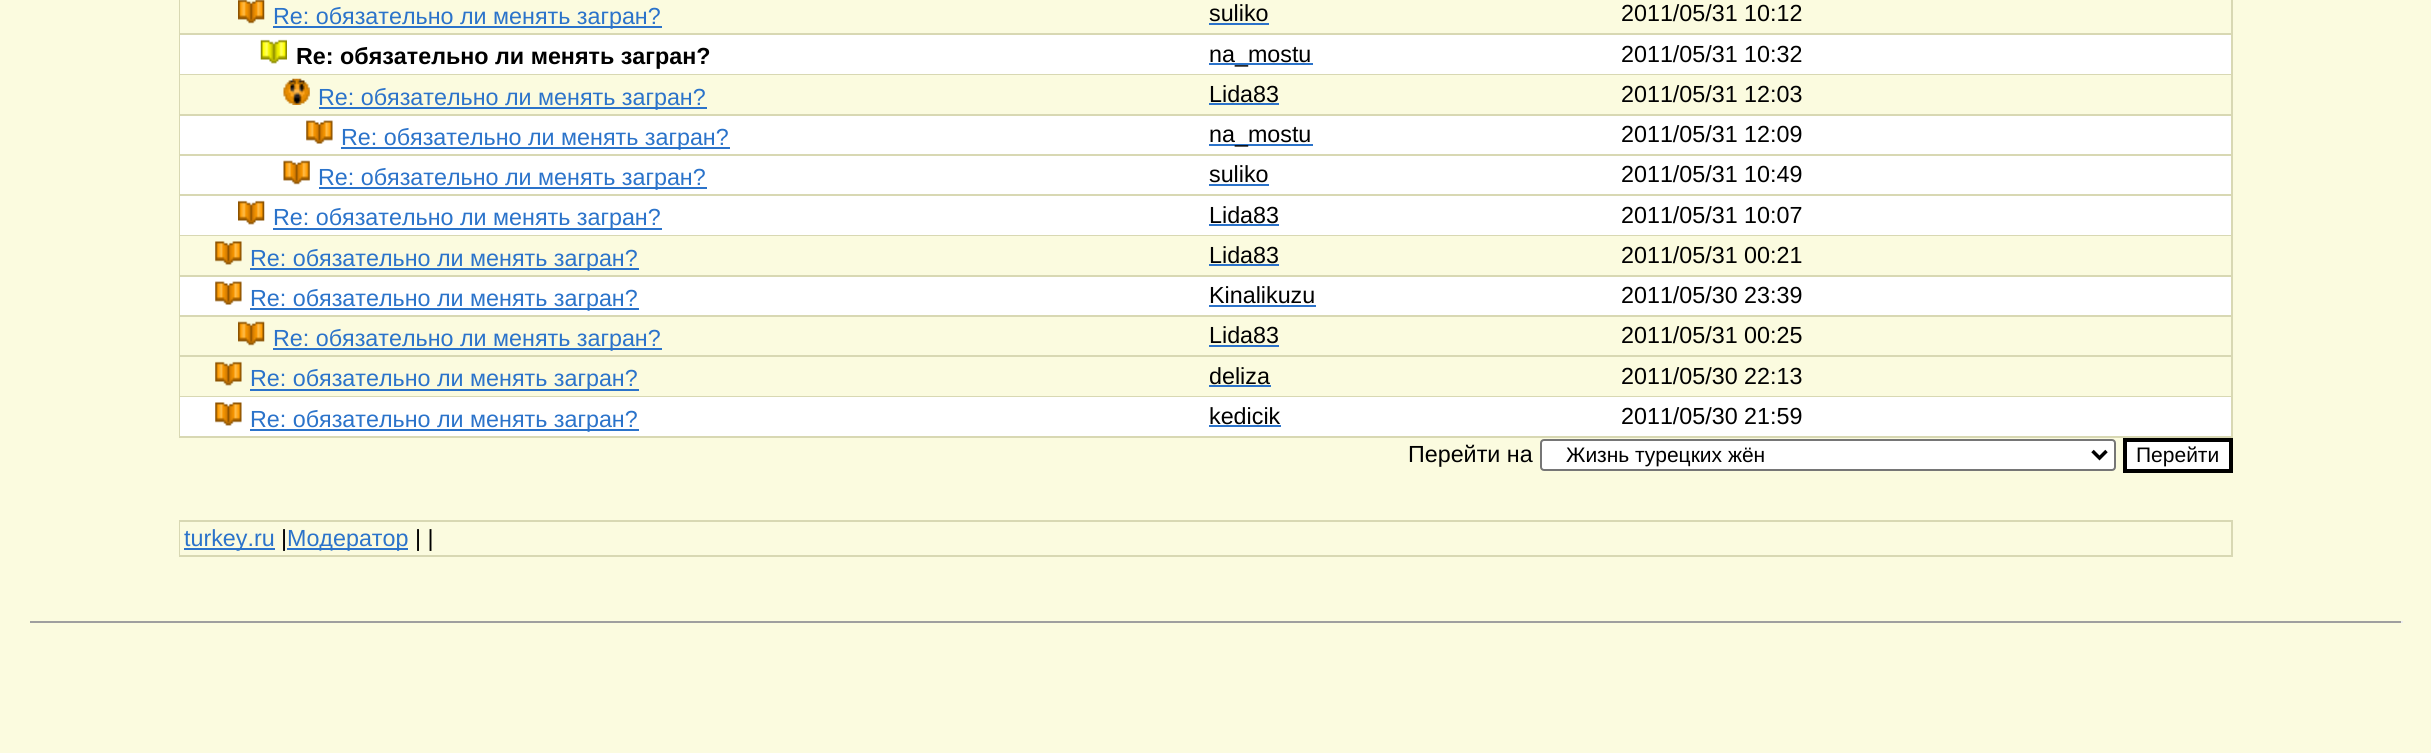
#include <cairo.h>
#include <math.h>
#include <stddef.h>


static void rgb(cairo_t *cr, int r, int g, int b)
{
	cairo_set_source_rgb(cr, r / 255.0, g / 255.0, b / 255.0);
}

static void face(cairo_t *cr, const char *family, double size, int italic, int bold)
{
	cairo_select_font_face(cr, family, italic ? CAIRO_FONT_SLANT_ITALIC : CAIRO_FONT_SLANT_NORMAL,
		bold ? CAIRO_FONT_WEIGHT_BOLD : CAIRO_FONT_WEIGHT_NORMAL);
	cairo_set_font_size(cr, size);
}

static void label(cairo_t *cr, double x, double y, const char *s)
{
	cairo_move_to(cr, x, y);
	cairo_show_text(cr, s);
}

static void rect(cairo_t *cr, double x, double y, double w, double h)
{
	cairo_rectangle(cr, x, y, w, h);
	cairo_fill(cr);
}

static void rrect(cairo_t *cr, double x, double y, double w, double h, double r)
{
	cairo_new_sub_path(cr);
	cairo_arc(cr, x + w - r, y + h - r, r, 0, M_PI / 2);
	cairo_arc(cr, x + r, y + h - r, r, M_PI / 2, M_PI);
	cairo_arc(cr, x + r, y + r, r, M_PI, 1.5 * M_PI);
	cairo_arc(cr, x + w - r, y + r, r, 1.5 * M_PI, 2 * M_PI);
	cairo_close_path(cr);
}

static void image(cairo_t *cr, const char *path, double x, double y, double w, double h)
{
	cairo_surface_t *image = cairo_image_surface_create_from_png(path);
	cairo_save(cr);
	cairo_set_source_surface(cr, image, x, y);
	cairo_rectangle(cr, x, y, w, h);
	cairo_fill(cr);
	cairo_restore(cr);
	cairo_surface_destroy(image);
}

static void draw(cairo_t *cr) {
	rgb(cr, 251, 251, 223);
	cairo_paint(cr);
	rgb(cr, 216, 216, 179);
	rect(cr, 179, 0, 2054, 438);
	rgb(cr, 251, 251, 223);
	rect(cr, 180, 0, 2051, 33);
	image(cr, "image0.png", 238, 0, 27, 24);
	rgb(cr, 43, 115, 202);
	rect(cr, 273, 26, 389, 2);
	face(cr, "Liberation Sans", 23.3, 0, 0);
	label(cr, 273, 24, "Re: обязательно ли менять загран?");
	rgb(cr, 0, 0, 0);
	label(cr, 1209, 21, "suliko");
	rgb(cr, 43, 115, 202);
	rect(cr, 1209, 23, 60, 2);
	rgb(cr, 0, 0, 0);
	label(cr, 1621, 21, "2011/05/31 10:12");
	rgb(cr, 255, 255, 255);
	rect(cr, 180, 35, 2051, 39);
	image(cr, "image1.png", 260, 39, 27, 25);
	face(cr, "Liberation Sans", 23.3, 0, 1);
	rgb(cr, 0, 0, 0);
	label(cr, 296, 64, "Re: обязательно ли менять загран?");
	rgb(cr, 43, 115, 202);
	rect(cr, 1209, 63, 104, 2);
	face(cr, "Liberation Sans", 23.3, 0, 0);
	rgb(cr, 0, 0, 0);
	label(cr, 1209, 62, "na_mostu");
	label(cr, 1621, 62, "2011/05/31 10:32");
	rgb(cr, 251, 251, 223);
	rect(cr, 180, 75, 2051, 39);
	image(cr, "image2.png", 283, 78, 27, 27);
	rgb(cr, 43, 115, 202);
	rect(cr, 319, 107, 388, 2);
	label(cr, 318, 105, "Re: обязательно ли менять загран?");
	rgb(cr, 0, 0, 0);
	label(cr, 1209, 102, "Lida83");
	rgb(cr, 43, 115, 202);
	rect(cr, 1209, 103, 70, 2);
	rgb(cr, 0, 0, 0);
	label(cr, 1621, 102, "2011/05/31 12:03");
	rgb(cr, 255, 255, 255);
	rect(cr, 180, 116, 2051, 38);
	image(cr, "image3.png", 306, 120, 27, 24);
	rgb(cr, 43, 115, 202);
	rect(cr, 341, 147, 389, 2);
	label(cr, 341, 145, "Re: обязательно ли менять загран?");
	rect(cr, 1209, 144, 104, 2);
	rgb(cr, 0, 0, 0);
	label(cr, 1209, 142, "na_mostu");
	label(cr, 1621, 142, "2011/05/31 12:09");
	rgb(cr, 255, 255, 255);
	rect(cr, 180, 156, 2051, 38);
	image(cr, "image4.png", 283, 160, 27, 25);
	rgb(cr, 43, 115, 202);
	rect(cr, 319, 187, 388, 2);
	label(cr, 318, 185, "Re: обязательно ли менять загран?");
	rgb(cr, 0, 0, 0);
	label(cr, 1209, 182, "suliko");
	rgb(cr, 43, 115, 202);
	rect(cr, 1209, 184, 60, 2);
	rgb(cr, 0, 0, 0);
	label(cr, 1621, 182, "2011/05/31 10:49");
	rgb(cr, 255, 255, 255);
	rect(cr, 180, 196, 2051, 39);
	image(cr, "image5.png", 238, 200, 27, 25);
	rgb(cr, 43, 115, 202);
	rect(cr, 273, 228, 389, 2);
	label(cr, 273, 225, "Re: обязательно ли менять загран?");
	rgb(cr, 0, 0, 0);
	label(cr, 1209, 223, "Lida83");
	rgb(cr, 43, 115, 202);
	rect(cr, 1209, 224, 70, 2);
	rgb(cr, 0, 0, 0);
	label(cr, 1621, 223, "2011/05/31 10:07");
	rgb(cr, 251, 251, 223);
	rect(cr, 180, 236, 2051, 39);
	image(cr, "image6.png", 215, 241, 27, 24);
	rgb(cr, 43, 115, 202);
	rect(cr, 250, 268, 389, 2);
	label(cr, 250, 266, "Re: обязательно ли менять загран?");
	rgb(cr, 0, 0, 0);
	label(cr, 1209, 263, "Lida83");
	rgb(cr, 43, 115, 202);
	rect(cr, 1209, 264, 70, 2);
	rgb(cr, 0, 0, 0);
	label(cr, 1621, 263, "2011/05/31 00:21");
	rgb(cr, 255, 255, 255);
	rect(cr, 180, 277, 2051, 38);
	image(cr, "image3.png", 215, 281, 27, 24);
	rgb(cr, 43, 115, 202);
	rect(cr, 250, 308, 389, 2);
	label(cr, 250, 306, "Re: обязательно ли менять загран?");
	rgb(cr, 0, 0, 0);
	label(cr, 1209, 303, "Kinalikuzu");
	rgb(cr, 43, 115, 202);
	rect(cr, 1209, 305, 107, 2);
	rgb(cr, 0, 0, 0);
	label(cr, 1621, 303, "2011/05/30 23:39");
	rgb(cr, 251, 251, 223);
	rect(cr, 180, 317, 2051, 38);
	image(cr, "image7.png", 238, 321, 27, 25);
	rgb(cr, 43, 115, 202);
	rect(cr, 273, 348, 389, 2);
	label(cr, 273, 346, "Re: обязательно ли менять загран?");
	rgb(cr, 0, 0, 0);
	label(cr, 1209, 343, "Lida83");
	rgb(cr, 43, 115, 202);
	rect(cr, 1209, 345, 70, 2);
	rgb(cr, 0, 0, 0);
	label(cr, 1621, 343, "2011/05/31 00:25");
	rgb(cr, 251, 251, 223);
	rect(cr, 180, 357, 2051, 39);
	image(cr, "image8.png", 215, 361, 27, 25);
	rgb(cr, 43, 115, 202);
	rect(cr, 250, 389, 389, 2);
	label(cr, 250, 386, "Re: обязательно ли менять загран?");
	rgb(cr, 0, 0, 0);
	label(cr, 1209, 384, "deliza");
	rgb(cr, 43, 115, 202);
	rect(cr, 1209, 385, 62, 2);
	rgb(cr, 0, 0, 0);
	label(cr, 1621, 384, "2011/05/30 22:13");
	rgb(cr, 255, 255, 255);
	rect(cr, 180, 397, 2051, 39);
	image(cr, "image9.png", 215, 402, 27, 24);
	rgb(cr, 43, 115, 202);
	rect(cr, 250, 429, 389, 2);
	label(cr, 250, 427, "Re: обязательно ли менять загран?");
	rgb(cr, 0, 0, 0);
	label(cr, 1209, 424, "kedicik");
	rgb(cr, 43, 115, 202);
	rect(cr, 1209, 425, 72, 2);
	rgb(cr, 0, 0, 0);
	label(cr, 1621, 424, "2011/05/30 21:59");
	label(cr, 1408, 462, "Перейти на");
	rgb(cr, 255, 255, 255);
	rrect(cr, 1541, 440, 574, 30, 3);
	cairo_fill_preserve(cr);
	rgb(cr, 118, 118, 118);
	cairo_stroke(cr);
	cairo_new_path(cr);
	cairo_move_to(cr, 2092.5, 451);
	cairo_line_to(cr, 2099.5, 458);
	cairo_line_to(cr, 2106.5, 451);
	rgb(cr, 0, 0, 0);
	cairo_set_line_width(cr, 3.5);
	cairo_stroke(cr);
	face(cr, "Liberation Sans", 21, 0, 0);
	label(cr, 1566, 462, "Жизнь турецких жён");
	rgb(cr, 255, 255, 255);
	cairo_rectangle(cr, 2125, 440, 106, 31);
	cairo_fill_preserve(cr);
	rgb(cr, 0, 0, 0);
	cairo_set_line_width(cr, 4);
	cairo_stroke(cr);
	label(cr, 2136, 462, "Перейти");
	rgb(cr, 216, 216, 179);
	rect(cr, 179, 520, 2054, 37);
	rgb(cr, 251, 251, 223);
	rect(cr, 180, 522, 2051, 33);
	rgb(cr, 43, 115, 202);
	rect(cr, 184, 548, 91, 2);
	face(cr, "Liberation Sans", 23.3, 0, 0);
	label(cr, 184, 546, "turkey.ru");
	rgb(cr, 0, 0, 0);
	label(cr, 281, 546, "|");
	rgb(cr, 43, 115, 202);
	rect(cr, 287, 548, 121, 2);
	label(cr, 287, 546, "Модератор");
	rgb(cr, 0, 0, 0);
	label(cr, 415, 546, "| |");
	rgb(cr, 159, 159, 159);
	rect(cr, 30, 621, 2373, 2);
	rgb(cr, 238, 238, 238);
	rect(cr, 2401, 621, 2, 2);
}

int main(void) {
	cairo_surface_t *surface = cairo_image_surface_create(CAIRO_FORMAT_RGB24, 2431, 753);
	cairo_t *cr = cairo_create(surface);
	cairo_font_options_t *options = cairo_font_options_create();
	cairo_font_options_set_hint_metrics(options, CAIRO_HINT_METRICS_OFF);
	cairo_font_options_set_hint_style(options, CAIRO_HINT_STYLE_NONE);
	cairo_set_font_options(cr, options);
	cairo_set_miter_limit(cr, 4);
	draw(cr);
	cairo_surface_write_to_png(surface, "render.png");
	cairo_font_options_destroy(options);
	cairo_destroy(cr);
	cairo_surface_destroy(surface);
	return 0;
}
